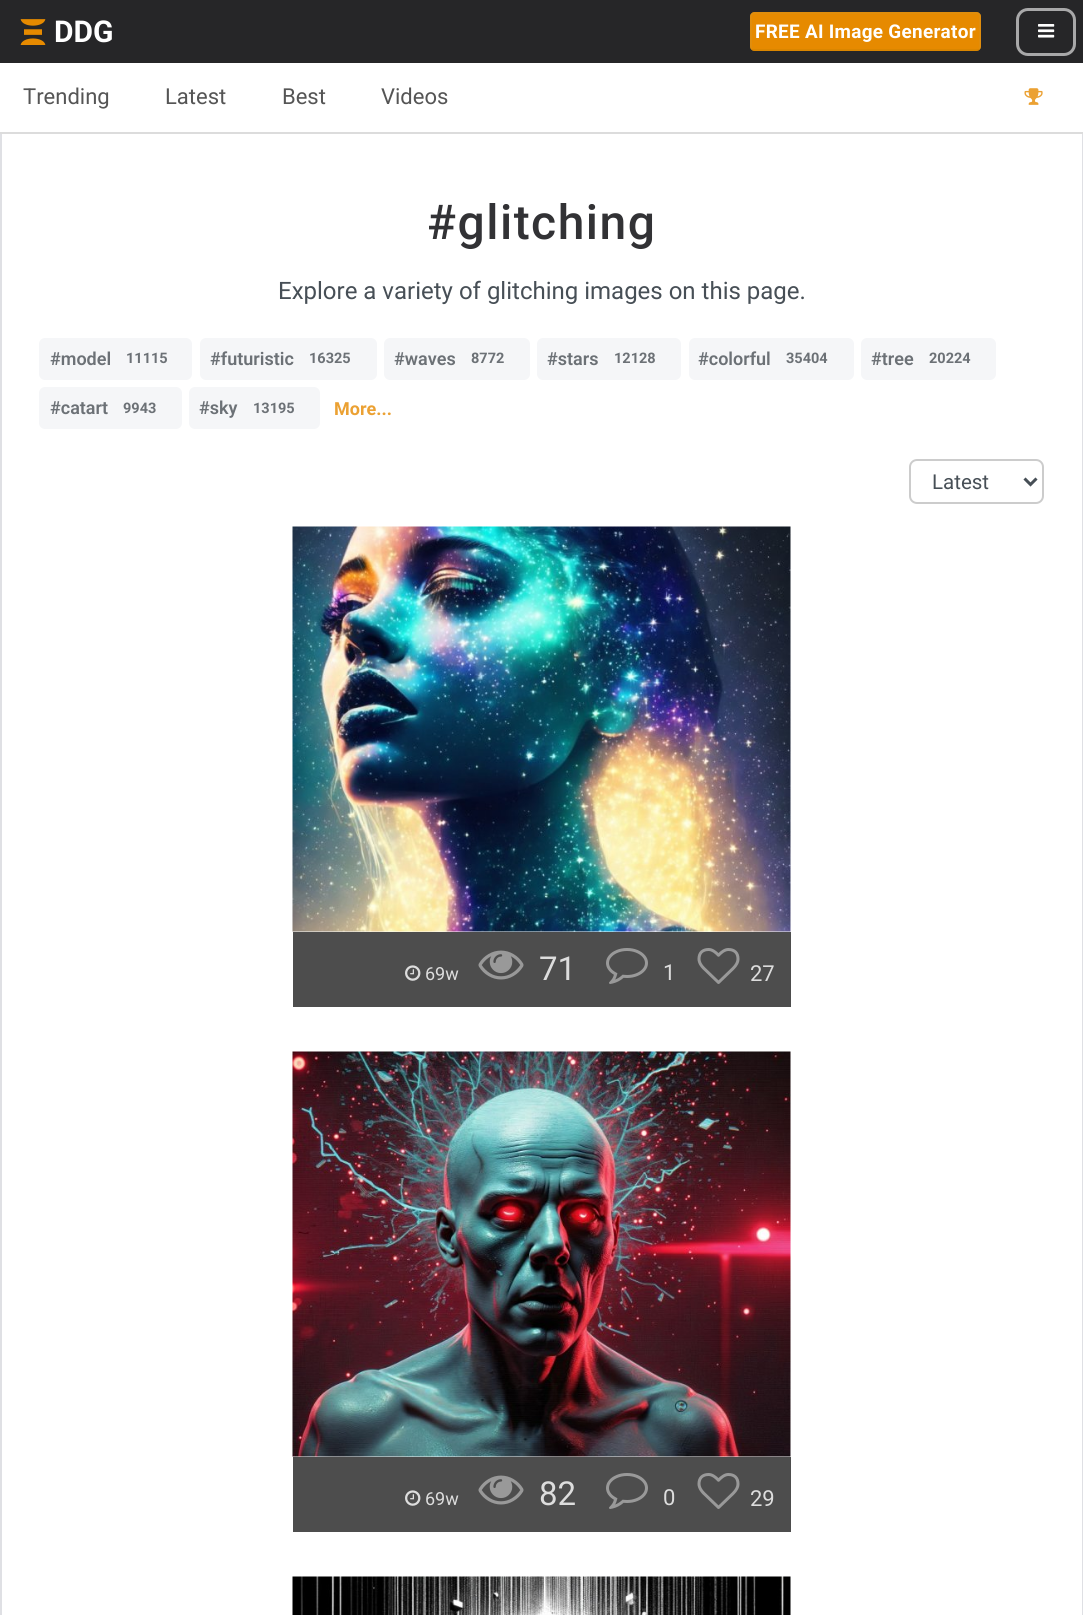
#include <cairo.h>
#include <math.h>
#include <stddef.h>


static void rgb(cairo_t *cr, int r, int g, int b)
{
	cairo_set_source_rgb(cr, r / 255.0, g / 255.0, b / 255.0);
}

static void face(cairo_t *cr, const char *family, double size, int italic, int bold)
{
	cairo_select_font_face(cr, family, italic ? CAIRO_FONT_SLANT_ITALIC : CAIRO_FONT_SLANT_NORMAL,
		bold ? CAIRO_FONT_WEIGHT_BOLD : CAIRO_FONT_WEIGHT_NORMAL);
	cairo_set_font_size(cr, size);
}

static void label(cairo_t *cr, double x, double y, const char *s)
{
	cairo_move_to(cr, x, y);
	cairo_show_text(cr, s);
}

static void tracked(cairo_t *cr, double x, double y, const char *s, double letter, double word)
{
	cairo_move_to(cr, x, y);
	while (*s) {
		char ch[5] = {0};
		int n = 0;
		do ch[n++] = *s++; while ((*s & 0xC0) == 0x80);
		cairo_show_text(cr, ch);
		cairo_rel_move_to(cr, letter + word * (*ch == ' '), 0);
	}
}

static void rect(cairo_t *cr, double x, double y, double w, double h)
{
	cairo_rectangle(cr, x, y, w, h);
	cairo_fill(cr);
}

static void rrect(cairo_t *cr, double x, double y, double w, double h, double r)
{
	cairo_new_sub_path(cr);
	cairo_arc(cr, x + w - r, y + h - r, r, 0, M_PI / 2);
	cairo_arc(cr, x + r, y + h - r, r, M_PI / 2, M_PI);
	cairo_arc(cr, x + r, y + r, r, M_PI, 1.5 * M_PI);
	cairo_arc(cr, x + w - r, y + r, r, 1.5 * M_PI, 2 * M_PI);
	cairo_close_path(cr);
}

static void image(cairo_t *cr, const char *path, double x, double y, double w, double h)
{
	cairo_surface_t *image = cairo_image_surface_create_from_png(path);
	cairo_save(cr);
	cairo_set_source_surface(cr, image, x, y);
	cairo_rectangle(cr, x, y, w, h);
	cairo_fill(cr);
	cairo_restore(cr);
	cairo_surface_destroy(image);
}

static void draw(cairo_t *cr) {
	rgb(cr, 255, 255, 255);
	cairo_paint(cr);
	rgb(cr, 38, 38, 40);
	rect(cr, 0, 0, 1083, 63);
	image(cr, "image0.png", 20, 19, 26, 26);
	face(cr, "Roboto", 30, 0, 1);
	rgb(cr, 255, 255, 255);
	label(cr, 54, 42, "DDG");
	rgb(cr, 230, 138, 0);
	rrect(cr, 750, 12, 231, 39, 5);
	cairo_fill(cr);
	cairo_new_path(cr);
	cairo_move_to(cr, 979, 49);
	cairo_curve_to(cr, 978.5, 50, 977.5, 50, 976.5, 50);
	cairo_line_to(cr, 754.5, 50);
	cairo_curve_to(cr, 753.5, 50, 752.5, 50, 752, 49);
	rgb(cr, 214, 132, 0);
	cairo_set_line_width(cr, 1.5);
	cairo_stroke(cr);
	cairo_new_path(cr);
	cairo_move_to(cr, 752, 49);
	cairo_curve_to(cr, 751, 48.5, 751, 47.5, 751, 46.5);
	cairo_line_to(cr, 751, 16.5);
	cairo_curve_to(cr, 751, 15.5, 751, 14.5, 752, 14);
	cairo_curve_to(cr, 752.5, 13, 753.5, 13, 754.5, 13);
	cairo_line_to(cr, 976.5, 13);
	cairo_curve_to(cr, 977.5, 13, 978.5, 13, 979, 14);
	cairo_curve_to(cr, 980, 14.5, 980, 15.5, 980, 16.5);
	cairo_line_to(cr, 980, 46.5);
	cairo_curve_to(cr, 980, 47.5, 980, 48.5, 979, 49);
	rgb(cr, 221, 142, 17);
	cairo_stroke(cr);
	face(cr, "Roboto", 18.9, 0, 1);
	rgb(cr, 255, 255, 255);
	tracked(cr, 755, 38, "FREE AI Image Generator", 0.3, 0);
	rrect(cr, 1017.5, 9.5, 57, 45, 10.5);
	rgb(cr, 168, 168, 169);
	cairo_set_line_width(cr, 3);
	cairo_stroke(cr);
	image(cr, "image1.png", 1038, 24, 17, 14);
	rgb(cr, 220, 220, 220);
	rect(cr, 0, 132, 1083, 2);
	face(cr, "Roboto", 22, 0, 0);
	rgb(cr, 85, 85, 85);
	label(cr, 23, 104, "Trending");
	label(cr, 165, 104, "Latest");
	label(cr, 282, 104, "Best");
	label(cr, 381, 104, "Videos");
	image(cr, "image2.png", 1024, 88, 19, 17);
	rgb(cr, 223, 224, 228);
	cairo_new_path(cr);
	cairo_move_to(cr, 1082, 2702);
	cairo_line_to(cr, 1081, 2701);
	cairo_line_to(cr, 1082, 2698);
	cairo_line_to(cr, 1082, 134);
	cairo_line_to(cr, 1083, 134);
	cairo_line_to(cr, 1083, 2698);
	cairo_curve_to(cr, 1083, 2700, 1082, 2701, 1082, 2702);
	cairo_close_path(cr);
	cairo_fill(cr);
	cairo_new_path(cr);
	cairo_move_to(cr, 0, 134);
	cairo_line_to(cr, 2, 134);
	cairo_line_to(cr, 2, 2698);
	cairo_line_to(cr, 3, 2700);
	cairo_line_to(cr, 1, 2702);
	cairo_curve_to(cr, 1, 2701, 0, 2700, 0, 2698);
	cairo_close_path(cr);
	cairo_fill(cr);
	face(cr, "Roboto Medium", 48, 0, 0);
	rgb(cr, 50, 50, 53);
	tracked(cr, 427, 239, "#glitching", 1.5, 0);
	face(cr, "Roboto", 24, 0, 0);
	rgb(cr, 71, 79, 86);
	label(cr, 278, 299, "Explore a variety of glitching images on this page.");
	rgb(cr, 245, 246, 248);
	rrect(cr, 39, 338, 153, 42, 6);
	cairo_fill(cr);
	face(cr, "Roboto SemiBold", 18, 0, 0);
	rgb(cr, 108, 113, 118);
	label(cr, 50, 365, "#model");
	face(cr, "Roboto", 14.5, 0, 1);
	label(cr, 126, 363, "11115");
	rgb(cr, 245, 246, 248);
	rrect(cr, 200, 338, 177, 42, 6);
	cairo_fill(cr);
	face(cr, "Roboto SemiBold", 18, 0, 0);
	rgb(cr, 108, 113, 118);
	label(cr, 210, 365, "#futuristic");
	face(cr, "Roboto", 14.5, 0, 1);
	label(cr, 309, 363, "16325");
	rgb(cr, 245, 246, 248);
	rrect(cr, 384, 338, 146, 42, 6);
	cairo_fill(cr);
	face(cr, "Roboto SemiBold", 18, 0, 0);
	rgb(cr, 108, 113, 118);
	label(cr, 394, 365, "#waves");
	face(cr, "Roboto", 14.5, 0, 1);
	label(cr, 471, 363, "8772");
	rgb(cr, 245, 246, 248);
	rrect(cr, 537, 338, 144, 42, 6);
	cairo_fill(cr);
	face(cr, "Roboto SemiBold", 18, 0, 0);
	rgb(cr, 108, 113, 118);
	label(cr, 547, 365, "#stars");
	face(cr, "Roboto", 14.5, 0, 1);
	label(cr, 614, 363, "12128");
	rgb(cr, 245, 246, 248);
	rrect(cr, 689, 338, 165, 42, 6);
	cairo_fill(cr);
	face(cr, "Roboto SemiBold", 18, 0, 0);
	rgb(cr, 108, 113, 118);
	label(cr, 698, 365, "#colorful");
	face(cr, "Roboto", 14.5, 0, 1);
	label(cr, 786, 363, "35404");
	rgb(cr, 245, 246, 248);
	rrect(cr, 861, 338, 135, 42, 6);
	cairo_fill(cr);
	face(cr, "Roboto SemiBold", 18, 0, 0);
	rgb(cr, 108, 113, 118);
	label(cr, 871, 365, "#tree");
	face(cr, "Roboto", 14.5, 0, 1);
	label(cr, 929, 363, "20224");
	rgb(cr, 245, 246, 248);
	rrect(cr, 39, 387, 143, 42, 6);
	cairo_fill(cr);
	face(cr, "Roboto SemiBold", 18, 0, 0);
	rgb(cr, 108, 113, 118);
	label(cr, 50, 414, "#catart");
	face(cr, "Roboto", 14.5, 0, 1);
	label(cr, 123, 413, "9943");
	rgb(cr, 245, 246, 248);
	rrect(cr, 189, 387, 131, 42, 6);
	cairo_fill(cr);
	face(cr, "Roboto SemiBold", 18, 0, 0);
	rgb(cr, 108, 113, 118);
	label(cr, 199, 414, "#sky");
	face(cr, "Roboto", 14.5, 0, 1);
	label(cr, 253, 413, "13195");
	face(cr, "Roboto", 18, 0, 1);
	rgb(cr, 235, 161, 51);
	label(cr, 334, 415, "More...");
	rrect(cr, 910, 460, 133, 43, 7);
	rgb(cr, 204, 204, 204);
	cairo_set_line_width(cr, 2);
	cairo_stroke(cr);
	cairo_new_path(cr);
	cairo_move_to(cr, 1024.5, 478.5);
	cairo_line_to(cr, 1030.5, 484.5);
	cairo_line_to(cr, 1036.5, 478.5);
	rgb(cr, 71, 79, 86);
	cairo_set_line_width(cr, 3);
	cairo_stroke(cr);
	face(cr, "Roboto", 20.5, 0, 0);
	label(cr, 932, 489, "Latest");
	rgb(cr, 250, 250, 250);
	rect(cr, 293, 527, 498, 405);
	image(cr, "image3.png", 292, 526, 499, 406);
	rgb(cr, 77, 77, 77);
	rect(cr, 293, 932, 498, 75);
	image(cr, "image4.png", 405, 965, 16, 16);
	face(cr, "Roboto", 18, 0, 0);
	rgb(cr, 221, 221, 221);
	label(cr, 425, 980, "69w");
	image(cr, "image5.png", 478, 950, 46, 30);
	face(cr, "Roboto", 33, 0, 0);
	label(cr, 539, 980, "71");
	image(cr, "image6.png", 606, 948, 42, 36);
	face(cr, "Roboto", 22, 0, 0);
	label(cr, 663, 980, "1");
	image(cr, "image7.png", 697, 948, 43, 36);
	label(cr, 750, 981, "27");
	rgb(cr, 250, 250, 250);
	rect(cr, 293, 1052, 498, 405);
	image(cr, "image8.png", 292, 1051, 499, 406);
	rgb(cr, 77, 77, 77);
	rect(cr, 293, 1457, 498, 75);
	image(cr, "image4.png", 405, 1490, 16, 16);
	face(cr, "Roboto", 18, 0, 0);
	rgb(cr, 221, 221, 221);
	label(cr, 425, 1505, "69w");
	image(cr, "image5.png", 478, 1475, 46, 30);
	face(cr, "Roboto", 33, 0, 0);
	label(cr, 539, 1505, "82");
	image(cr, "image6.png", 606, 1473, 42, 36);
	face(cr, "Roboto", 22, 0, 0);
	label(cr, 663, 1505, "0");
	image(cr, "image7.png", 697, 1473, 43, 36);
	label(cr, 750, 1506, "29");
	rgb(cr, 250, 250, 250);
	rect(cr, 790, 1577, 1, 38);
	image(cr, "image9.png", 292, 1576, 499, 39);
}

int main(void) {
	cairo_surface_t *surface = cairo_image_surface_create(CAIRO_FORMAT_RGB24, 1083, 1615);
	cairo_t *cr = cairo_create(surface);
	cairo_font_options_t *options = cairo_font_options_create();
	cairo_font_options_set_hint_metrics(options, CAIRO_HINT_METRICS_OFF);
	cairo_font_options_set_hint_style(options, CAIRO_HINT_STYLE_NONE);
	cairo_set_font_options(cr, options);
	cairo_set_miter_limit(cr, 4);
	draw(cr);
	cairo_surface_write_to_png(surface, "render.png");
	cairo_font_options_destroy(options);
	cairo_destroy(cr);
	cairo_surface_destroy(surface);
	return 0;
}
